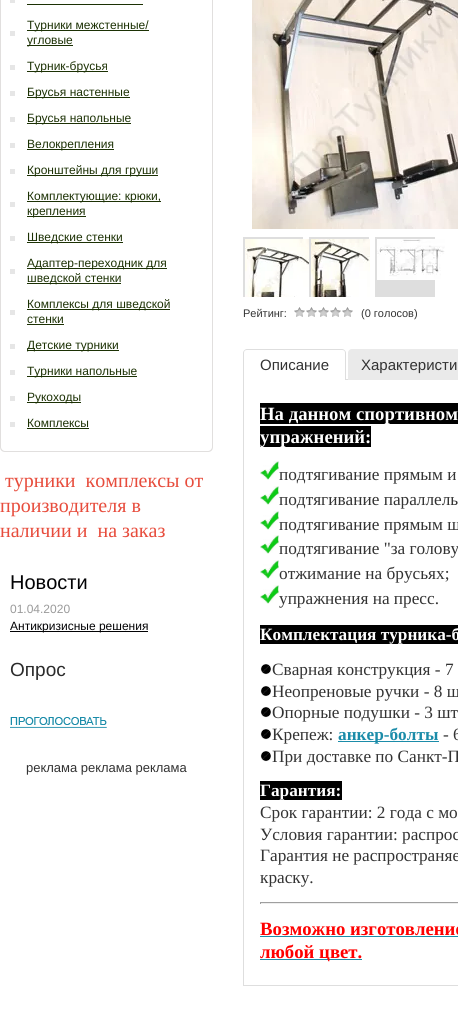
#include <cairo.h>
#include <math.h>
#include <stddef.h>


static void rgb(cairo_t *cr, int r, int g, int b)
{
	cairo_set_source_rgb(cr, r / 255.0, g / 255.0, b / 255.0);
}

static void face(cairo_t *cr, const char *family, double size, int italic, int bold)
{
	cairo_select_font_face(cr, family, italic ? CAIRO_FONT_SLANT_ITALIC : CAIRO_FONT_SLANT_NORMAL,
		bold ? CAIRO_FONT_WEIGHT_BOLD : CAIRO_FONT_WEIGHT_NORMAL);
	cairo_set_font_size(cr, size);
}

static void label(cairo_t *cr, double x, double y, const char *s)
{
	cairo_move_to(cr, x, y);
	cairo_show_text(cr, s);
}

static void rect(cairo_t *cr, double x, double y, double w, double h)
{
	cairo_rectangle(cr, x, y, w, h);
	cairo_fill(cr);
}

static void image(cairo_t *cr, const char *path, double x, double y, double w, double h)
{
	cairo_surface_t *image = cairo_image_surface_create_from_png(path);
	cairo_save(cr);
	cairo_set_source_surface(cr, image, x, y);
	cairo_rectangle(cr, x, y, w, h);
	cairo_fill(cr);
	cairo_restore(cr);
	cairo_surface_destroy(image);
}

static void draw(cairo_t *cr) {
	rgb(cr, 255, 255, 255);
	cairo_paint(cr);
	rgb(cr, 225, 223, 222);
	cairo_set_fill_rule(cr, CAIRO_FILL_RULE_EVEN_ODD);
	cairo_new_path(cr);
	cairo_move_to(cr, 5, -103);
	cairo_line_to(cr, 208, -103);
	cairo_curve_to(cr, 211, -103, 213, -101, 213, -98);
	cairo_line_to(cr, 213, 447);
	cairo_curve_to(cr, 213, 450, 211, 452, 208, 452);
	cairo_line_to(cr, 5, 452);
	cairo_curve_to(cr, 2, 452, 0, 450, 0, 447);
	cairo_line_to(cr, 0, -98);
	cairo_curve_to(cr, 0, -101, 2, -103, 5, -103);
	cairo_close_path(cr);
	cairo_move_to(cr, 5, -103);
	cairo_line_to(cr, 208, -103);
	cairo_curve_to(cr, 210, -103, 212, -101, 212, -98);
	cairo_line_to(cr, 212, 447);
	cairo_curve_to(cr, 212, 449, 210, 451, 208, 451);
	cairo_line_to(cr, 5, 451);
	cairo_curve_to(cr, 3, 451, 1, 449, 1, 447);
	cairo_line_to(cr, 1, -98);
	cairo_curve_to(cr, 1, -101, 3, -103, 5, -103);
	cairo_close_path(cr);
	cairo_fill(cr);
	rgb(cr, 230, 230, 230);
	rect(cr, 10, 0, 5, 3);
	rgb(cr, 28, 49, 4);
	rect(cr, 27, 4, 116, 1);
	rgb(cr, 230, 230, 230);
	rect(cr, 10, 31, 5, 5);
	rgb(cr, 28, 49, 4);
	rect(cr, 27, 30, 122, 1);
	face(cr, "Liberation Sans", 12, 0, 0);
	label(cr, 27, 29, "Турники межстенные/");
	rect(cr, 27, 45, 46, 1);
	label(cr, 27, 44, "угловые");
	rgb(cr, 230, 230, 230);
	rect(cr, 10, 65, 5, 5);
	rgb(cr, 28, 49, 4);
	rect(cr, 27, 71, 81, 1);
	label(cr, 27, 70, "Турник-брусья");
	rgb(cr, 230, 230, 230);
	rect(cr, 10, 91, 5, 5);
	rgb(cr, 28, 49, 4);
	rect(cr, 27, 97, 103, 1);
	label(cr, 27, 96, "Брусья настенные");
	rgb(cr, 230, 230, 230);
	rect(cr, 10, 117, 5, 5);
	rgb(cr, 28, 49, 4);
	rect(cr, 27, 123, 104, 1);
	label(cr, 27, 122, "Брусья напольные");
	rgb(cr, 230, 230, 230);
	rect(cr, 10, 143, 5, 5);
	rgb(cr, 28, 49, 4);
	rect(cr, 27, 149, 87, 1);
	label(cr, 27, 148, "Велокрепления");
	rgb(cr, 230, 230, 230);
	rect(cr, 10, 169, 5, 5);
	rgb(cr, 28, 49, 4);
	rect(cr, 27, 175, 131, 1);
	label(cr, 27, 174, "Кронштейны для груши");
	rgb(cr, 230, 230, 230);
	rect(cr, 10, 202, 5, 5);
	rgb(cr, 28, 49, 4);
	rect(cr, 27, 201, 134, 1);
	label(cr, 27, 200, "Комплектующие: крюки,");
	rect(cr, 27, 216, 59, 1);
	label(cr, 27, 215, "крепления");
	rgb(cr, 230, 230, 230);
	rect(cr, 10, 236, 5, 5);
	rgb(cr, 28, 49, 4);
	rect(cr, 27, 242, 96, 1);
	label(cr, 27, 241, "Шведские стенки");
	rgb(cr, 230, 230, 230);
	rect(cr, 10, 269, 5, 5);
	rgb(cr, 28, 49, 4);
	rect(cr, 27, 268, 140, 1);
	label(cr, 27, 267, "Адаптер-переходник для");
	rect(cr, 27, 283, 94, 1);
	label(cr, 27, 282, "шведской стенки");
	rgb(cr, 230, 230, 230);
	rect(cr, 10, 310, 5, 5);
	rgb(cr, 28, 49, 4);
	rect(cr, 27, 309, 143, 1);
	label(cr, 27, 308, "Комплексы для шведской");
	label(cr, 27, 323, "стенки");
	rect(cr, 27, 324, 37, 1);
	rgb(cr, 230, 230, 230);
	rect(cr, 10, 344, 5, 5);
	rgb(cr, 28, 49, 4);
	rect(cr, 27, 350, 92, 1);
	label(cr, 27, 349, "Детские турники");
	rgb(cr, 230, 230, 230);
	rect(cr, 10, 370, 5, 5);
	rgb(cr, 28, 49, 4);
	rect(cr, 27, 376, 110, 1);
	label(cr, 27, 375, "Турники напольные");
	rgb(cr, 230, 230, 230);
	rect(cr, 10, 396, 5, 5);
	rgb(cr, 28, 49, 4);
	rect(cr, 27, 402, 54, 1);
	label(cr, 27, 401, "Рукоходы");
	rgb(cr, 230, 230, 230);
	rect(cr, 10, 422, 5, 5);
	rgb(cr, 28, 49, 4);
	label(cr, 27, 427, "Комплексы");
	rect(cr, 27, 428, 62, 1);
	face(cr, "Liberation Serif", 20, 0, 0);
	rgb(cr, 231, 76, 60);
	label(cr, 5, 487, "турники  комплексы от");
	label(cr, 0, 512, "производителя в");
	label(cr, 0, 537, "наличии и  на заказ");
	face(cr, "Liberation Sans", 20, 0, 0);
	rgb(cr, 2, 2, 4);
	label(cr, 10, 589, "Новости");
	face(cr, "Liberation Sans", 12, 0, 0);
	rgb(cr, 154, 154, 154);
	label(cr, 10, 613, "01.04.2020");
	rgb(cr, 2, 2, 4);
	rect(cr, 10, 631, 138, 1);
	label(cr, 10, 630, "Антикризисные решения");
	face(cr, "Liberation Sans", 19, 0, 0);
	rgb(cr, 43, 43, 43);
	label(cr, 10, 676, "Опрос");
	image(cr, "image0.png", 10, 717, 97, 11);
	face(cr, "Liberation Sans", 13, 0, 0);
	rgb(cr, 51, 51, 51);
	label(cr, 26, 772, "реклама реклама реклама");
	image(cr, "image1.png", 252, 0, 206, 229);
	rgb(cr, 222, 222, 222);
	rect(cr, 243, 237, 60, 60);
	image(cr, "image2.png", 245, 239, 64, 58);
	rect(cr, 309, 237, 60, 60);
	image(cr, "image3.png", 311, 239, 59, 58);
	rect(cr, 375, 237, 60, 60);
	image(cr, "image4.png", 377, 239, 68, 41);
	face(cr, "Liberation Sans", 11, 0, 0);
	rgb(cr, 51, 51, 51);
	label(cr, 243, 317, "Рейтинг:");
	image(cr, "image5.png", 294, 307, 59, 10);
	label(cr, 361, 317, "(0 голосов)");
	cairo_rectangle(cr, 243.5, 379.5, 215, 606);
	rgb(cr, 222, 222, 222);
	cairo_set_line_width(cr, 1);
	cairo_stroke(cr);
	rgb(cr, 255, 255, 255);
	cairo_new_path(cr);
	cairo_move_to(cr, 247, 349);
	cairo_line_to(cr, 342, 349);
	cairo_curve_to(cr, 344, 349, 346, 351, 346, 353);
	cairo_line_to(cr, 346, 380);
	cairo_line_to(cr, 243, 380);
	cairo_line_to(cr, 243, 353);
	cairo_curve_to(cr, 243, 351, 245, 349, 247, 349);
	cairo_close_path(cr);
	cairo_fill(cr);
	rgb(cr, 222, 222, 222);
	cairo_new_path(cr);
	cairo_move_to(cr, 247, 349);
	cairo_line_to(cr, 342, 349);
	cairo_curve_to(cr, 344, 349, 346, 351, 346, 353);
	cairo_line_to(cr, 346, 380);
	cairo_line_to(cr, 243, 380);
	cairo_line_to(cr, 243, 353);
	cairo_curve_to(cr, 243, 351, 245, 349, 247, 349);
	cairo_close_path(cr);
	cairo_move_to(cr, 247, 350);
	cairo_line_to(cr, 342, 350);
	cairo_curve_to(cr, 344, 350, 345, 351, 345, 353);
	cairo_line_to(cr, 345, 380);
	cairo_line_to(cr, 244, 380);
	cairo_line_to(cr, 244, 353);
	cairo_curve_to(cr, 244, 351, 245, 350, 247, 350);
	cairo_close_path(cr);
	cairo_fill(cr);
	face(cr, "Liberation Sans", 15, 0, 0);
	rgb(cr, 51, 51, 51);
	label(cr, 260, 370, "Описание");
	rgb(cr, 234, 234, 234);
	cairo_new_path(cr);
	cairo_move_to(cr, 352, 349.5);
	cairo_line_to(cr, 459, 349.5);
	cairo_curve_to(cr, 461, 349.5, 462.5, 351, 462.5, 353);
	cairo_line_to(cr, 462.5, 379.5);
	cairo_line_to(cr, 348.5, 379.5);
	cairo_line_to(cr, 348.5, 353);
	cairo_curve_to(cr, 348.5, 351, 350, 349.5, 352, 349.5);
	cairo_close_path(cr);
	cairo_fill_preserve(cr);
	cairo_stroke(cr);
	rgb(cr, 51, 51, 51);
	label(cr, 361, 370, "Характеристи");
	rgb(cr, 0, 0, 0);
	rect(cr, 260, 403, 198, 21);
	face(cr, "Liberation Serif", 18.75, 0, 1);
	rgb(cr, 255, 255, 255);
	label(cr, 260, 420, "На данном спортивном");
	rgb(cr, 0, 0, 0);
	rect(cr, 260, 426, 111, 21);
	rgb(cr, 255, 255, 255);
	label(cr, 260, 443, "упражнений:");
	image(cr, "image6.png", 260, 461, 19, 19);
	face(cr, "Liberation Serif", 17.25, 0, 0);
	rgb(cr, 51, 51, 51);
	label(cr, 279, 480, "подтягивание прямым и");
	image(cr, "image6.png", 260, 486, 19, 19);
	label(cr, 279, 505, "подтягивание параллель");
	image(cr, "image6.png", 260, 511, 19, 19);
	label(cr, 279, 530, "подтягивание прямым ш");
	image(cr, "image7.png", 260, 535, 19, 19);
	label(cr, 279, 554, "подтягивание \"за голову");
	image(cr, "image6.png", 260, 560, 19, 19);
	label(cr, 279, 579, "отжимание на брусьях;");
	image(cr, "image6.png", 260, 585, 19, 19);
	label(cr, 279, 604, "упражнения на пресс.");
	rgb(cr, 0, 0, 0);
	rect(cr, 260, 625, 198, 19);
	face(cr, "Liberation Serif", 17.25, 0, 1);
	rgb(cr, 255, 255, 255);
	label(cr, 260, 640, "Комплектация турника-б");
	image(cr, "image8.png", 260, 664, 11, 11);
	face(cr, "Liberation Serif", 17.25, 0, 0);
	rgb(cr, 51, 51, 51);
	label(cr, 272, 675, "Сварная конструкция - 7");
	image(cr, "image8.png", 260, 686, 11, 11);
	label(cr, 272, 697, "Неопреновые ручки - 8 ш");
	image(cr, "image8.png", 260, 707, 11, 11);
	label(cr, 272, 718, "Опорные подушки - 3 шт");
	image(cr, "image8.png", 260, 729, 11, 11);
	label(cr, 272, 740, "Крепеж:");
	rgb(cr, 27, 140, 169);
	rect(cr, 338, 741, 101, 1);
	face(cr, "Liberation Serif", 17.25, 0, 1);
	label(cr, 338, 740, "анкер-болты");
	face(cr, "Liberation Serif", 17.25, 0, 0);
	rgb(cr, 51, 51, 51);
	label(cr, 443, 740, "- 6");
	image(cr, "image8.png", 260, 751, 11, 11);
	label(cr, 272, 762, "При доставке по Санкт-П");
	rgb(cr, 0, 0, 0);
	rect(cr, 260, 781, 82, 19);
	face(cr, "Liberation Serif", 17.25, 0, 1);
	rgb(cr, 255, 255, 255);
	label(cr, 260, 796, "Гарантия:");
	face(cr, "Liberation Serif", 17.25, 0, 0);
	rgb(cr, 51, 51, 51);
	label(cr, 260, 818, "Срок гарантии: 2 года с мо");
	label(cr, 260, 840, "Условия гарантии: распрос");
	label(cr, 260, 861, "Гарантия не распространяе");
	label(cr, 260, 883, "краску.");
	rgb(cr, 159, 159, 159);
	rect(cr, 260, 902, 198, 1);
	rgb(cr, 238, 238, 238);
	rect(cr, 260, 903, 198, 1);
	rgb(cr, 159, 159, 159);
	rect(cr, 260, 902, 1, 2);
	face(cr, "Liberation Serif", 18.75, 0, 1);
	rgb(cr, 255, 0, 0);
	label(cr, 260, 935, "Возможно изготовление");
	rgb(cr, 27, 140, 169);
	rect(cr, 260, 936, 198, 1);
	rect(cr, 260, 959, 102, 1);
	rgb(cr, 255, 0, 0);
	label(cr, 260, 958, "любой цвет.");
}

int main(void) {
	cairo_surface_t *surface = cairo_image_surface_create(CAIRO_FORMAT_RGB24, 458, 1009);
	cairo_t *cr = cairo_create(surface);
	cairo_font_options_t *options = cairo_font_options_create();
	cairo_font_options_set_hint_metrics(options, CAIRO_HINT_METRICS_OFF);
	cairo_font_options_set_hint_style(options, CAIRO_HINT_STYLE_NONE);
	cairo_set_font_options(cr, options);
	cairo_set_miter_limit(cr, 4);
	draw(cr);
	cairo_surface_write_to_png(surface, "render.png");
	cairo_font_options_destroy(options);
	cairo_destroy(cr);
	cairo_surface_destroy(surface);
	return 0;
}
